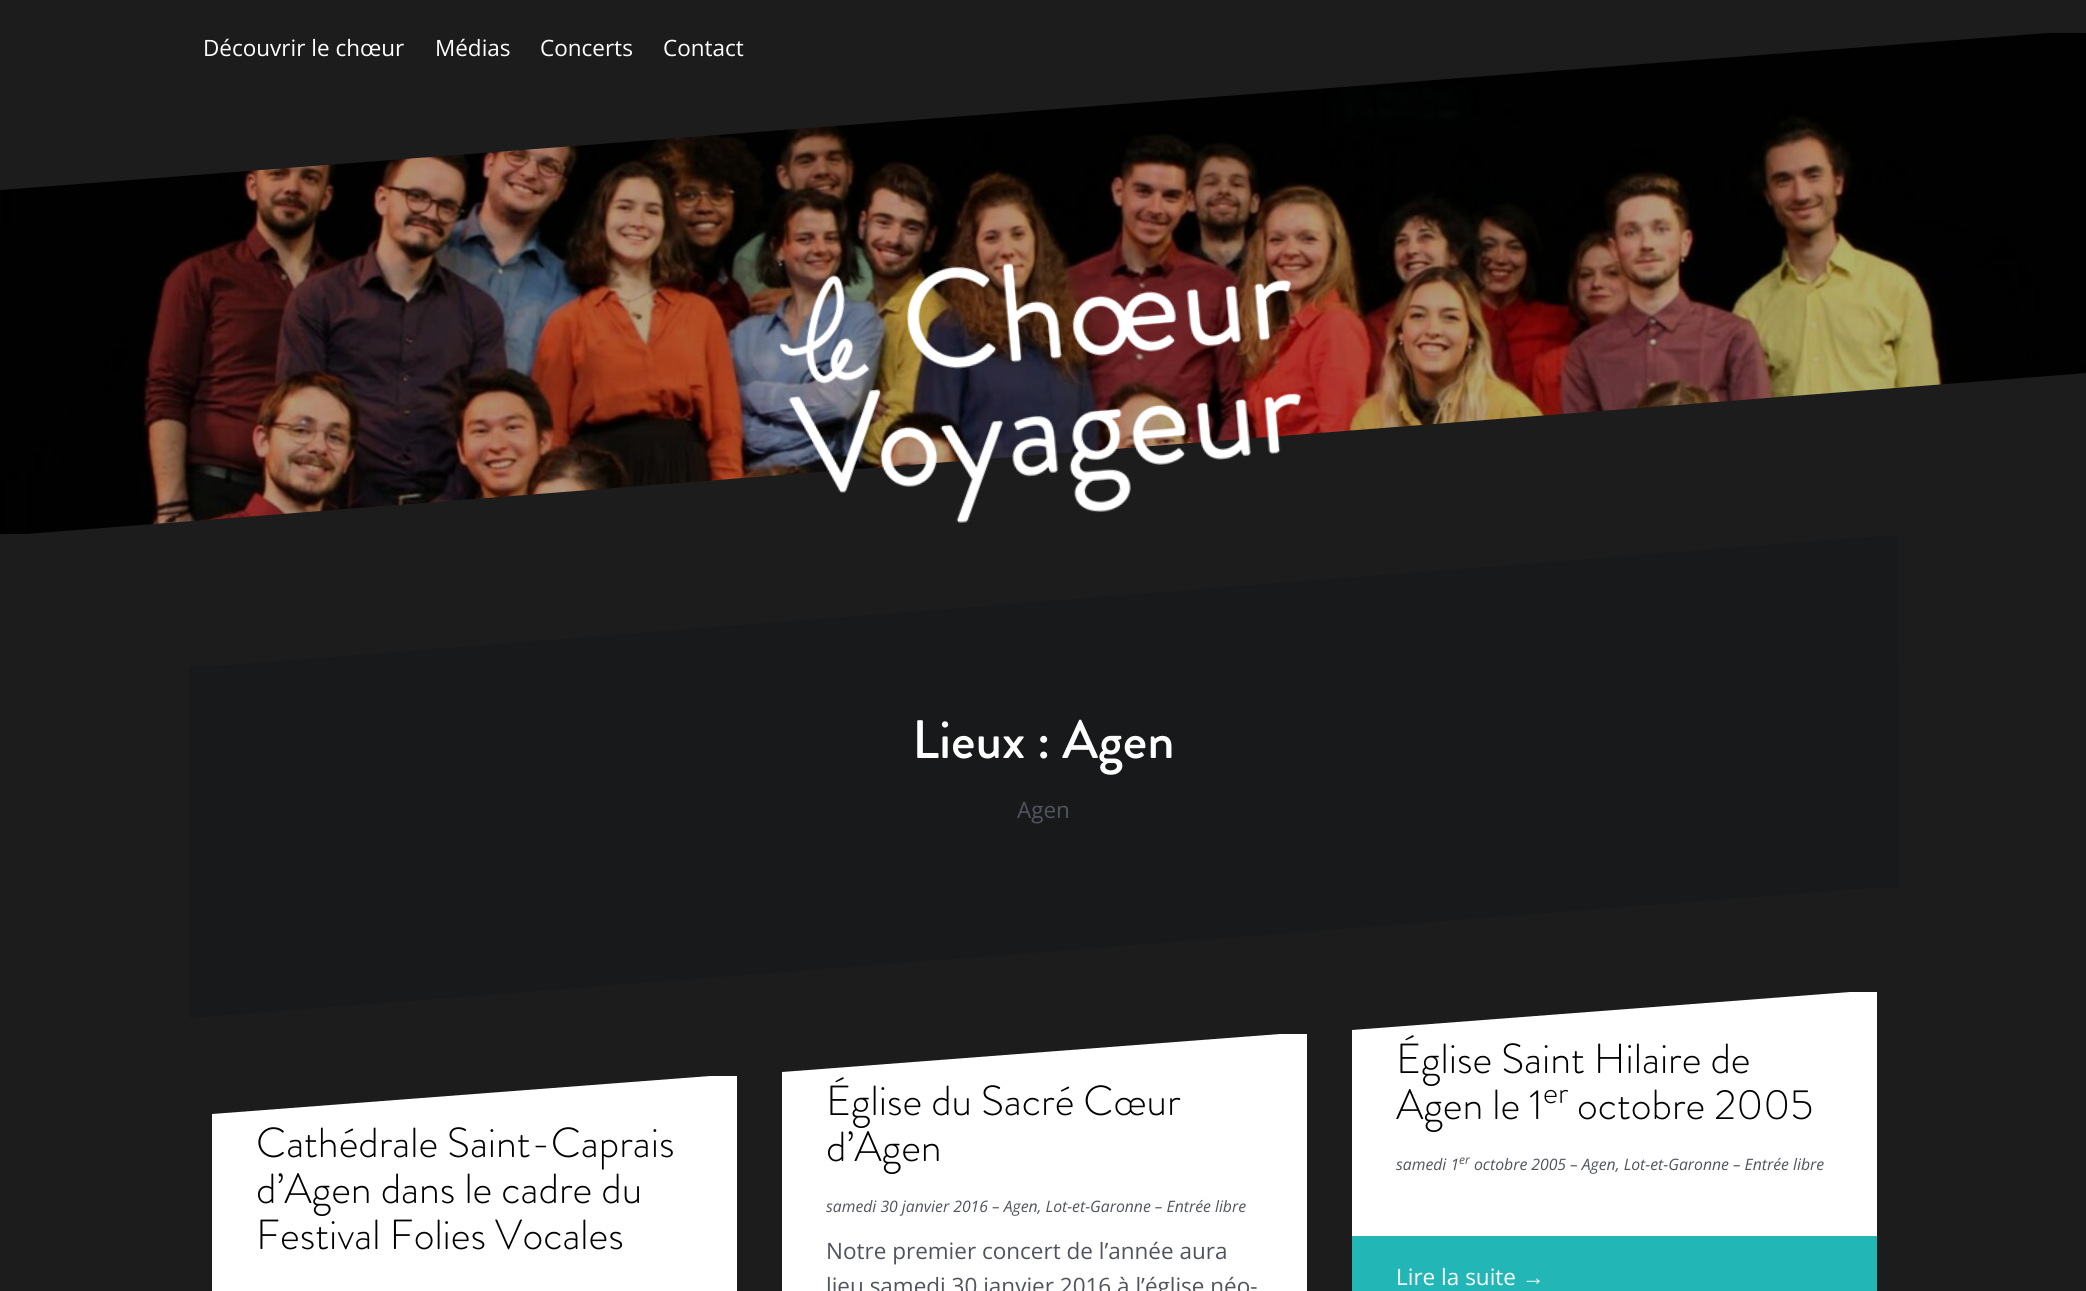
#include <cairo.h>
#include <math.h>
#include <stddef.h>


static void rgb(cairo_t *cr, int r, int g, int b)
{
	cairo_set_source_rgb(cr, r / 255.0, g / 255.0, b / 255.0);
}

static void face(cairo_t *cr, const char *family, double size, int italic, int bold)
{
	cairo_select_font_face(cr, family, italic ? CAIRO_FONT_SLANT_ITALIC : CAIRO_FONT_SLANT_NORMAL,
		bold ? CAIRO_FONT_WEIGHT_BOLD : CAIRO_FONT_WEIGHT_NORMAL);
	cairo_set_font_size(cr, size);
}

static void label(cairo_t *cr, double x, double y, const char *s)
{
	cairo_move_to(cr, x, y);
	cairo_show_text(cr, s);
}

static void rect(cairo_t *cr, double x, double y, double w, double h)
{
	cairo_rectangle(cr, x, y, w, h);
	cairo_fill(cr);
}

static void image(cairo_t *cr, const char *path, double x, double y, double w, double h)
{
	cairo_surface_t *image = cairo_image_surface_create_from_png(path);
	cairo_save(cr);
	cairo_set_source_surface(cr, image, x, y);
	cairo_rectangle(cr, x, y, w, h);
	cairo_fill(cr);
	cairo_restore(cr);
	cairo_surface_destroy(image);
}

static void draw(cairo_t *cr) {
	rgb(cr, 28, 28, 28);
	cairo_paint(cr);
	image(cr, "image0.png", 0, 33, 2086, 501);
	rgb(cr, 28, 28, 28);
	cairo_new_path(cr);
	cairo_move_to(cr, 0, 190);
	cairo_line_to(cr, 0, 30);
	cairo_line_to(cr, 2086, 30);
	cairo_fill(cr);
	rgb(cr, 23, 25, 27);
	rect(cr, 189, 666, 1710, 222);
	cairo_save(cr);
	cairo_rectangle(cr, 189, 533, 1709, 135);
	cairo_clip(cr);
	cairo_new_path(cr);
	cairo_move_to(cr, 1931, 532);
	cairo_line_to(cr, 1931, 668);
	cairo_line_to(cr, 189, 668);
	cairo_fill(cr);
	cairo_restore(cr);
	rgb(cr, 28, 28, 28);
	cairo_new_path(cr);
	cairo_move_to(cr, 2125, 370);
	cairo_line_to(cr, 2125, 536);
	cairo_line_to(cr, 0, 536);
	cairo_fill(cr);
	image(cr, "image1.png", 779, 263, 522, 260);
	face(cr, "Open Sans", 22.5, 0, 0);
	rgb(cr, 255, 255, 255);
	label(cr, 203, 56, "Découvrir le chœur");
	label(cr, 435, 56, "Médias");
	label(cr, 540, 56, "Concerts");
	label(cr, 663, 56, "Contact");
	face(cr, "Brandon Grotesque Medium", 54, 0, 0);
	label(cr, 912, 758, "Lieux : Agen");
	face(cr, "Open Sans", 22.5, 0, 0);
	rgb(cr, 80, 84, 92);
	label(cr, 1017, 818, "Agen");
	rgb(cr, 255, 255, 255);
	rect(cr, 1352, 992, 525, 244);
	cairo_save(cr);
	cairo_rectangle(cr, 189, 887, 1709, 132);
	cairo_clip(cr);
	rgb(cr, 23, 25, 27);
	cairo_new_path(cr);
	cairo_move_to(cr, 189, 1018);
	cairo_line_to(cr, 189, 886);
	cairo_line_to(cr, 1899, 886);
	cairo_fill(cr);
	cairo_restore(cr);
	rect(cr, 212, 1076, 525, 215);
	rgb(cr, 28, 28, 28);
	cairo_new_path(cr);
	cairo_move_to(cr, 212, 1114);
	cairo_line_to(cr, 212, 1074);
	cairo_line_to(cr, 736, 1074);
	cairo_fill(cr);
	face(cr, "Brandon Grotesque Light", 42, 0, 0);
	rgb(cr, 0, 0, 0);
	label(cr, 256, 1157, "Cathédrale Saint-Caprais");
	label(cr, 256, 1203, "d’Agen dans le cadre du");
	label(cr, 256, 1249, "Festival Folies Vocales");
	rgb(cr, 255, 255, 255);
	rect(cr, 782, 1034, 525, 257);
	rgb(cr, 28, 28, 28);
	cairo_new_path(cr);
	cairo_move_to(cr, 782, 1072);
	cairo_line_to(cr, 782, 1032);
	cairo_line_to(cr, 1306, 1032);
	cairo_fill(cr);
	rgb(cr, 0, 0, 0);
	label(cr, 826, 1115, "Église du Sacré Cœur");
	label(cr, 826, 1161, "d’Agen");
	face(cr, "Open Sans", 15.75, 1, 0);
	rgb(cr, 80, 84, 92);
	label(cr, 826, 1212, "samedi 30 janvier 2016 – Agen, Lot-et-Garonne – Entrée libre");
	face(cr, "Open Sans", 22.5, 0, 0);
	label(cr, 826, 1259, "Notre premier concert de l’année aura");
	label(cr, 826, 1294, "lieu samedi 30 janvier 2016 à l’église néo-");
	rgb(cr, 28, 28, 28);
	cairo_new_path(cr);
	cairo_move_to(cr, 1352, 1030);
	cairo_line_to(cr, 1352, 990);
	cairo_line_to(cr, 1876, 990);
	cairo_fill(cr);
	face(cr, "Brandon Grotesque Light", 42, 0, 0);
	rgb(cr, 0, 0, 0);
	label(cr, 1396, 1073, "Église Saint Hilaire de");
	label(cr, 1396, 1119, "Agen le 1");
	face(cr, "Brandon Grotesque Light", 32, 0, 0);
	label(cr, 1543, 1103, "er");
	face(cr, "Brandon Grotesque Light", 42, 0, 0);
	label(cr, 1577, 1119, "octobre 2005");
	face(cr, "Open Sans", 15.75, 1, 0);
	rgb(cr, 80, 84, 92);
	label(cr, 1396, 1170, "samedi 1");
	face(cr, "Open Sans", 12, 1, 0);
	label(cr, 1459, 1164, "er");
	face(cr, "Open Sans", 15.75, 1, 0);
	label(cr, 1474, 1170, "octobre 2005 – Agen, Lot-et-Garonne – Entrée libre");
	rgb(cr, 35, 182, 182);
	rect(cr, 1352, 1236, 525, 55);
	face(cr, "Open Sans", 22.5, 0, 0);
	rgb(cr, 255, 255, 255);
	label(cr, 1396, 1285, "Lire la suite");
	face(cr, "Liberation Sans", 22.5, 0, 0);
	label(cr, 1522, 1285, "→");
}

int main(void) {
	cairo_surface_t *surface = cairo_image_surface_create(CAIRO_FORMAT_RGB24, 2086, 1291);
	cairo_t *cr = cairo_create(surface);
	cairo_font_options_t *options = cairo_font_options_create();
	cairo_font_options_set_hint_metrics(options, CAIRO_HINT_METRICS_OFF);
	cairo_font_options_set_hint_style(options, CAIRO_HINT_STYLE_NONE);
	cairo_set_font_options(cr, options);
	cairo_set_miter_limit(cr, 4);
	draw(cr);
	cairo_surface_write_to_png(surface, "render.png");
	cairo_font_options_destroy(options);
	cairo_destroy(cr);
	cairo_surface_destroy(surface);
	return 0;
}
